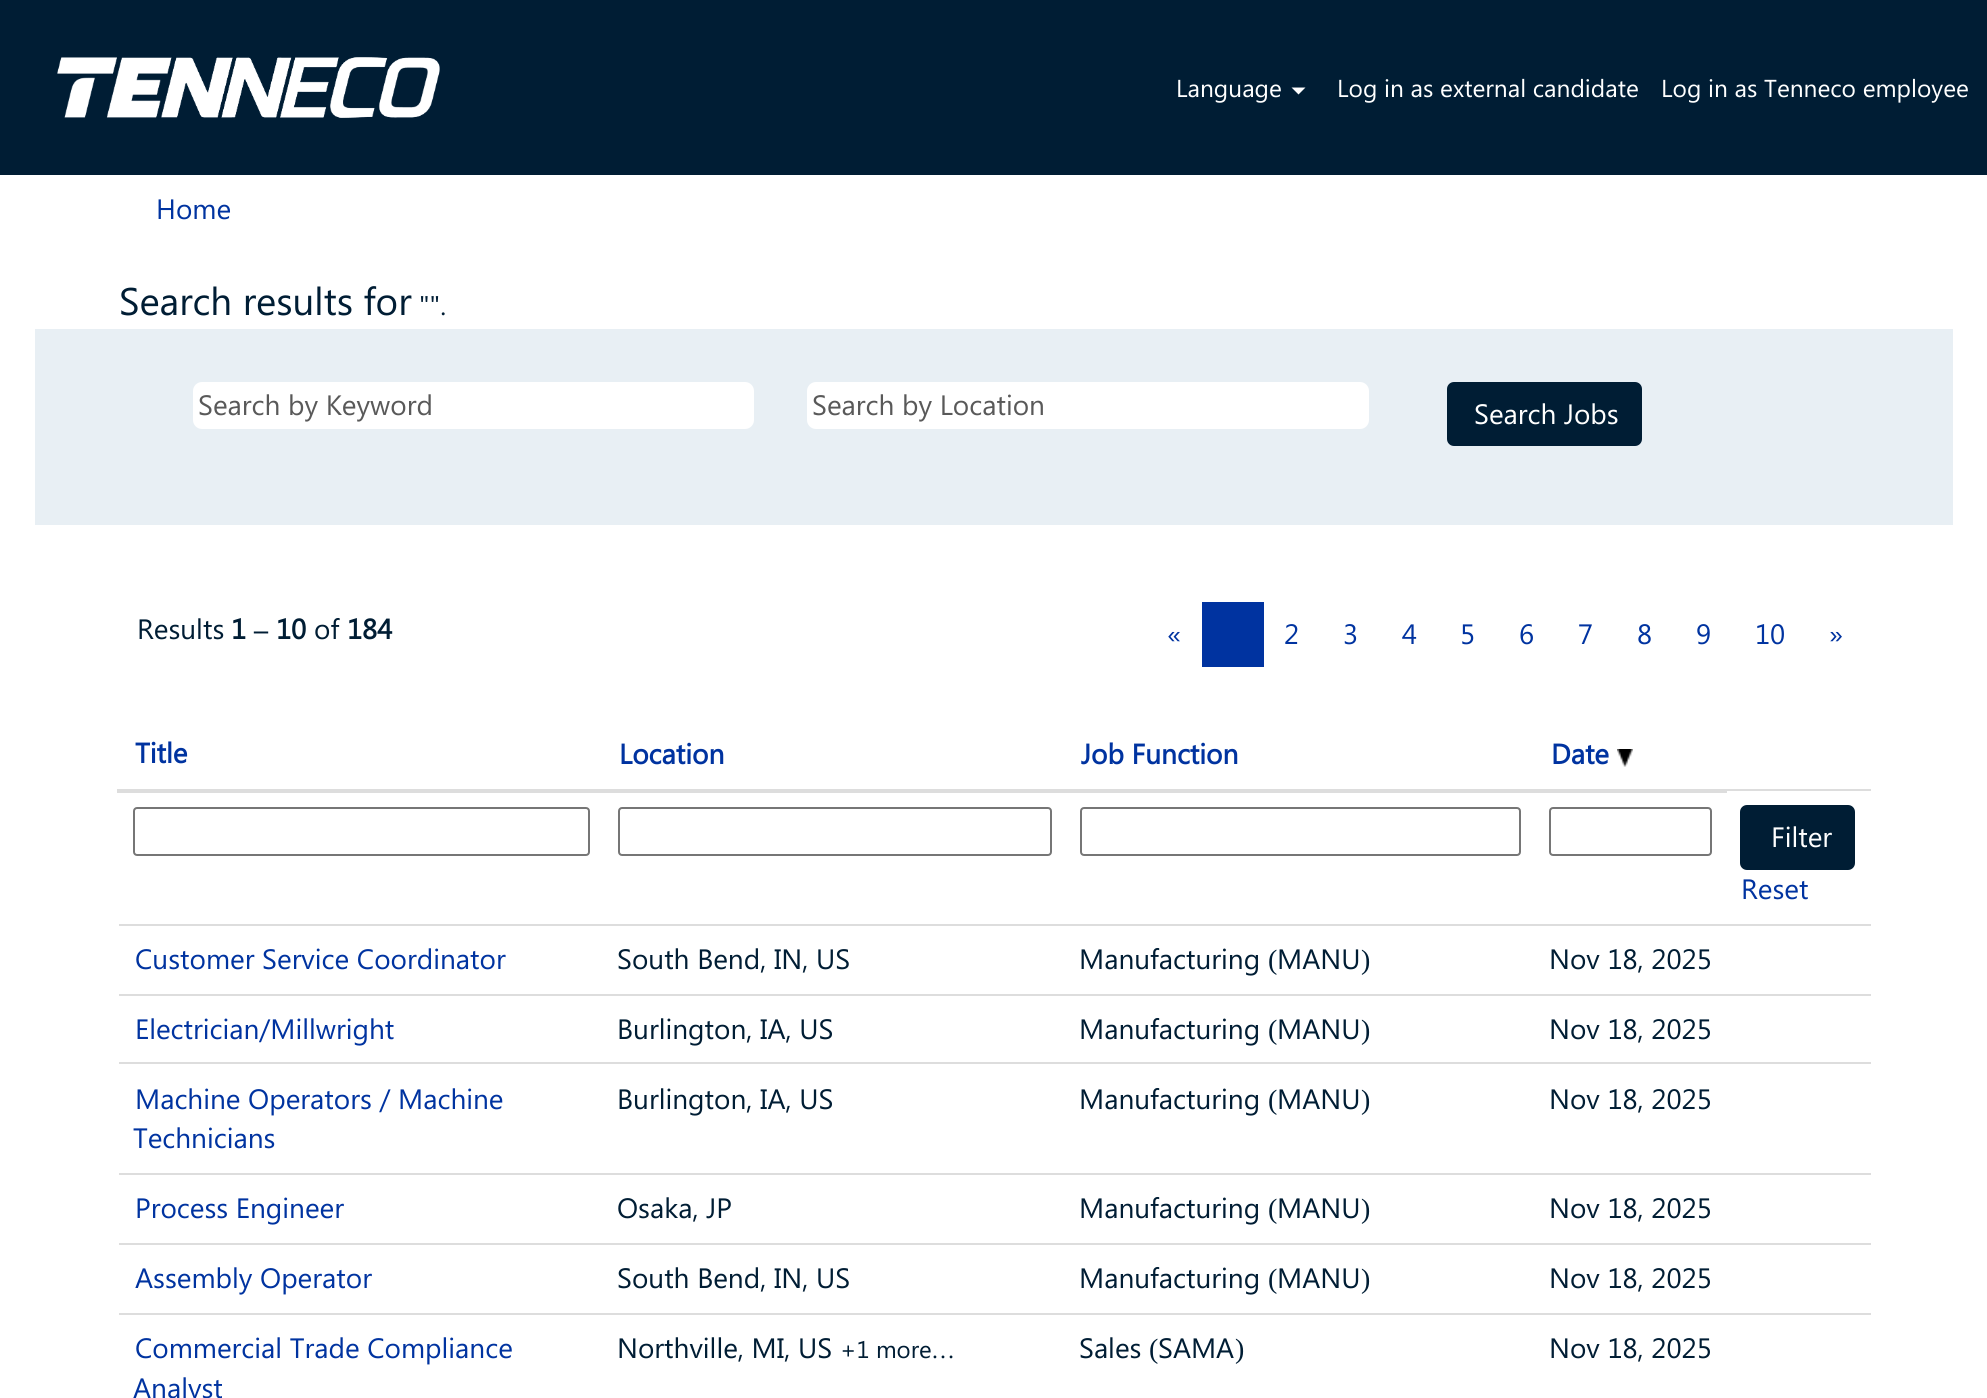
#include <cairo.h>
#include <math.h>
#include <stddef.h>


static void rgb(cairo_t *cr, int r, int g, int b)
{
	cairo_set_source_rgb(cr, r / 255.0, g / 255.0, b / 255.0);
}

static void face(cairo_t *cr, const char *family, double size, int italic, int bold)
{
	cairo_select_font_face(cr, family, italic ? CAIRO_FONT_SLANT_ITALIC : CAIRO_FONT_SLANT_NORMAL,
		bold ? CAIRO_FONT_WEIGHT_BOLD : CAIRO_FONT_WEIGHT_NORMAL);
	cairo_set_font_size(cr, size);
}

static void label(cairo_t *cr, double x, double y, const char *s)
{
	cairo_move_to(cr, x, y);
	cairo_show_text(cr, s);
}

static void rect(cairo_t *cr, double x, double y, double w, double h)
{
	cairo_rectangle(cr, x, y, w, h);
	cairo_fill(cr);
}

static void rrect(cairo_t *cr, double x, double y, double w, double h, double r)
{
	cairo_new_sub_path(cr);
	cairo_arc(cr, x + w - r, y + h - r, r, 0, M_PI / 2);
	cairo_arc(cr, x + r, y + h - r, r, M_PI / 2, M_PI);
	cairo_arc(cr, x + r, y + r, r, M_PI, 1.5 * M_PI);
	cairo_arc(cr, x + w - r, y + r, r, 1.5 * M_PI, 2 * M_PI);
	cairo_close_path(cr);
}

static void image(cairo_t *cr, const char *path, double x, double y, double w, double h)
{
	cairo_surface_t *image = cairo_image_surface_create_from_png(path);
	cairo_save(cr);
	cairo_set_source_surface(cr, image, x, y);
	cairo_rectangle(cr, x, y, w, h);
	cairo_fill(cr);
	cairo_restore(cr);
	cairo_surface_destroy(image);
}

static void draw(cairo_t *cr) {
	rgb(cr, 255, 255, 255);
	cairo_paint(cr);
	rgb(cr, 0, 29, 52);
	rect(cr, 0, 0, 1987, 175);
	image(cr, "image0.png", 57, 57, 383, 61);
	face(cr, "Segoe UI", 24.5, 0, 0);
	rgb(cr, 255, 255, 255);
	label(cr, 1176, 97, "Language");
	cairo_new_path(cr);
	cairo_move_to(cr, 1291.5, 87.5);
	cairo_line_to(cr, 1305.5, 87.5);
	cairo_line_to(cr, 1298.5, 94.5);
	cairo_close_path(cr);
	cairo_fill(cr);
	label(cr, 1337, 97, "Log in as external candidate");
	label(cr, 1661, 97, "Log in as Tenneco employee");
	face(cr, "Segoe UI", 28, 0, 0);
	rgb(cr, 0, 51, 160);
	label(cr, 156, 219, "Home");
	face(cr, "Segoe UI", 38.5, 0, 0);
	rgb(cr, 0, 29, 52);
	label(cr, 119, 315, "Search results for");
	face(cr, "Segoe UI", 27, 0, 0);
	label(cr, 419, 315, "\"\".");
	rgb(cr, 232, 239, 244);
	rect(cr, 35, 329, 1918, 196);
	rgb(cr, 255, 255, 255);
	rrect(cr, 193, 382, 561, 47, 9);
	cairo_fill(cr);
	face(cr, "Segoe UI", 28, 0, 0);
	rgb(cr, 89, 89, 89);
	label(cr, 198, 415, "Search by Keyword");
	rgb(cr, 255, 255, 255);
	rrect(cr, 807, 382, 562, 47, 9);
	cairo_fill(cr);
	rgb(cr, 89, 89, 89);
	label(cr, 812, 415, "Search by Location");
	rgb(cr, 0, 29, 52);
	rrect(cr, 1447, 382, 195, 64, 7);
	cairo_fill(cr);
	rgb(cr, 255, 255, 255);
	label(cr, 1474, 424, "Search Jobs");
	rgb(cr, 0, 29, 52);
	label(cr, 137, 639, "Results");
	face(cr, "Segoe UI", 28, 0, 1);
	label(cr, 231, 639, "1");
	face(cr, "Liberation Serif", 28, 0, 1);
	label(cr, 254, 639, "–");
	face(cr, "Segoe UI", 28, 0, 1);
	label(cr, 276, 639, "10");
	face(cr, "Segoe UI", 28, 0, 0);
	label(cr, 314, 639, "of");
	face(cr, "Segoe UI", 28, 0, 1);
	label(cr, 347, 639, "184");
	face(cr, "Segoe UI", 28, 0, 0);
	rgb(cr, 0, 51, 160);
	label(cr, 1167, 644, "«");
	rect(cr, 1202, 602, 62, 65);
	label(cr, 1284, 644, "2");
	label(cr, 1343, 644, "3");
	label(cr, 1402, 644, "4");
	label(cr, 1460, 644, "5");
	label(cr, 1519, 644, "6");
	label(cr, 1578, 644, "7");
	label(cr, 1637, 644, "8");
	label(cr, 1696, 644, "9");
	label(cr, 1755, 644, "10");
	label(cr, 1829, 644, "»");
	face(cr, "Segoe UI", 28, 0, 1);
	label(cr, 135, 763, "Title");
	label(cr, 619, 764, "Location");
	label(cr, 1081, 764, "Job Function");
	rgb(cr, 221, 221, 221);
	rect(cr, 1726, 789, 145, 2);
	rect(cr, 117, 789, 1610, 4);
	rgb(cr, 0, 51, 160);
	label(cr, 1551, 764, "Date");
	image(cr, "image1.png", 1617, 749, 16, 18);
	rrect(cr, 134, 808, 455, 47, 3);
	rgb(cr, 118, 118, 118);
	cairo_stroke(cr);
	rrect(cr, 619, 808, 432, 47, 3);
	cairo_stroke(cr);
	rrect(cr, 1081, 808, 439, 47, 3);
	cairo_stroke(cr);
	rrect(cr, 1550, 808, 161, 47, 3);
	cairo_stroke(cr);
	rgb(cr, 0, 29, 52);
	rrect(cr, 1740, 805, 115, 65, 7);
	cairo_fill(cr);
	face(cr, "Segoe UI", 28, 0, 0);
	rgb(cr, 255, 255, 255);
	label(cr, 1771, 847, "Filter");
	rgb(cr, 0, 51, 160);
	label(cr, 1741, 899, "Reset");
	rgb(cr, 221, 221, 221);
	rect(cr, 119, 924, 1752, 2);
	rgb(cr, 0, 51, 160);
	label(cr, 135, 969, "Customer Service Coordinator");
	rgb(cr, 0, 29, 52);
	label(cr, 617, 969, "South Bend, IN, US");
	label(cr, 1079, 969, "Manufacturing");
	face(cr, "Liberation Serif", 28, 0, 0);
	label(cr, 1268, 969, "(");
	face(cr, "Segoe UI", 28, 0, 0);
	label(cr, 1277, 969, "MANU");
	face(cr, "Liberation Serif", 28, 0, 0);
	label(cr, 1361, 969, ")");
	face(cr, "Segoe UI", 28, 0, 0);
	label(cr, 1549, 969, "Nov 18, 2025");
	rgb(cr, 221, 221, 221);
	rect(cr, 119, 994, 1752, 2);
	rgb(cr, 0, 51, 160);
	label(cr, 135, 1039, "Electrician/Millwright");
	rgb(cr, 0, 29, 52);
	label(cr, 617, 1039, "Burlington, IA, US");
	label(cr, 1079, 1039, "Manufacturing");
	face(cr, "Liberation Serif", 28, 0, 0);
	label(cr, 1268, 1039, "(");
	face(cr, "Segoe UI", 28, 0, 0);
	label(cr, 1277, 1039, "MANU");
	face(cr, "Liberation Serif", 28, 0, 0);
	label(cr, 1361, 1039, ")");
	face(cr, "Segoe UI", 28, 0, 0);
	label(cr, 1549, 1039, "Nov 18, 2025");
	rgb(cr, 221, 221, 221);
	rect(cr, 119, 1062, 1752, 2);
	rgb(cr, 0, 51, 160);
	label(cr, 135, 1109, "Machine Operators / Machine");
	label(cr, 133, 1148, "Technicians");
	rgb(cr, 0, 29, 52);
	label(cr, 617, 1109, "Burlington, IA, US");
	label(cr, 1079, 1109, "Manufacturing");
	face(cr, "Liberation Serif", 28, 0, 0);
	label(cr, 1268, 1109, "(");
	face(cr, "Segoe UI", 28, 0, 0);
	label(cr, 1277, 1109, "MANU");
	face(cr, "Liberation Serif", 28, 0, 0);
	label(cr, 1361, 1109, ")");
	face(cr, "Segoe UI", 28, 0, 0);
	label(cr, 1549, 1109, "Nov 18, 2025");
	rgb(cr, 221, 221, 221);
	rect(cr, 119, 1173, 1752, 2);
	rgb(cr, 0, 51, 160);
	label(cr, 135, 1218, "Process Engineer");
	rgb(cr, 0, 29, 52);
	label(cr, 617, 1218, "Osaka, JP");
	label(cr, 1079, 1218, "Manufacturing");
	face(cr, "Liberation Serif", 28, 0, 0);
	label(cr, 1268, 1218, "(");
	face(cr, "Segoe UI", 28, 0, 0);
	label(cr, 1277, 1218, "MANU");
	face(cr, "Liberation Serif", 28, 0, 0);
	label(cr, 1361, 1218, ")");
	face(cr, "Segoe UI", 28, 0, 0);
	label(cr, 1549, 1218, "Nov 18, 2025");
	rgb(cr, 221, 221, 221);
	rect(cr, 119, 1243, 1752, 2);
	rgb(cr, 0, 51, 160);
	label(cr, 135, 1288, "Assembly Operator");
	rgb(cr, 0, 29, 52);
	label(cr, 617, 1288, "South Bend, IN, US");
	label(cr, 1079, 1288, "Manufacturing");
	face(cr, "Liberation Serif", 28, 0, 0);
	label(cr, 1268, 1288, "(");
	face(cr, "Segoe UI", 28, 0, 0);
	label(cr, 1277, 1288, "MANU");
	face(cr, "Liberation Serif", 28, 0, 0);
	label(cr, 1361, 1288, ")");
	face(cr, "Segoe UI", 28, 0, 0);
	label(cr, 1549, 1288, "Nov 18, 2025");
	rgb(cr, 221, 221, 221);
	rect(cr, 119, 1313, 1752, 2);
	rgb(cr, 0, 51, 160);
	label(cr, 135, 1358, "Commercial Trade Compliance");
	label(cr, 133, 1398, "Analyst");
	rgb(cr, 0, 29, 52);
	label(cr, 617, 1358, "Northville, MI, US");
	face(cr, "Segoe UI", 24, 0, 0);
	label(cr, 840, 1358, "+1 more");
	face(cr, "Liberation Serif", 24, 0, 0);
	label(cr, 931, 1358, "…");
	face(cr, "Segoe UI", 28, 0, 0);
	label(cr, 1079, 1358, "Sales");
	face(cr, "Liberation Serif", 28, 0, 0);
	label(cr, 1149, 1358, "(");
	face(cr, "Segoe UI", 28, 0, 0);
	label(cr, 1158, 1358, "SAMA");
	face(cr, "Liberation Serif", 28, 0, 0);
	label(cr, 1235, 1358, ")");
	face(cr, "Segoe UI", 28, 0, 0);
	label(cr, 1549, 1358, "Nov 18, 2025");
}

int main(void) {
	cairo_surface_t *surface = cairo_image_surface_create(CAIRO_FORMAT_RGB24, 1987, 1398);
	cairo_t *cr = cairo_create(surface);
	cairo_font_options_t *options = cairo_font_options_create();
	cairo_font_options_set_hint_metrics(options, CAIRO_HINT_METRICS_OFF);
	cairo_font_options_set_hint_style(options, CAIRO_HINT_STYLE_NONE);
	cairo_set_font_options(cr, options);
	cairo_set_miter_limit(cr, 4);
	draw(cr);
	cairo_surface_write_to_png(surface, "render.png");
	cairo_font_options_destroy(options);
	cairo_destroy(cr);
	cairo_surface_destroy(surface);
	return 0;
}
